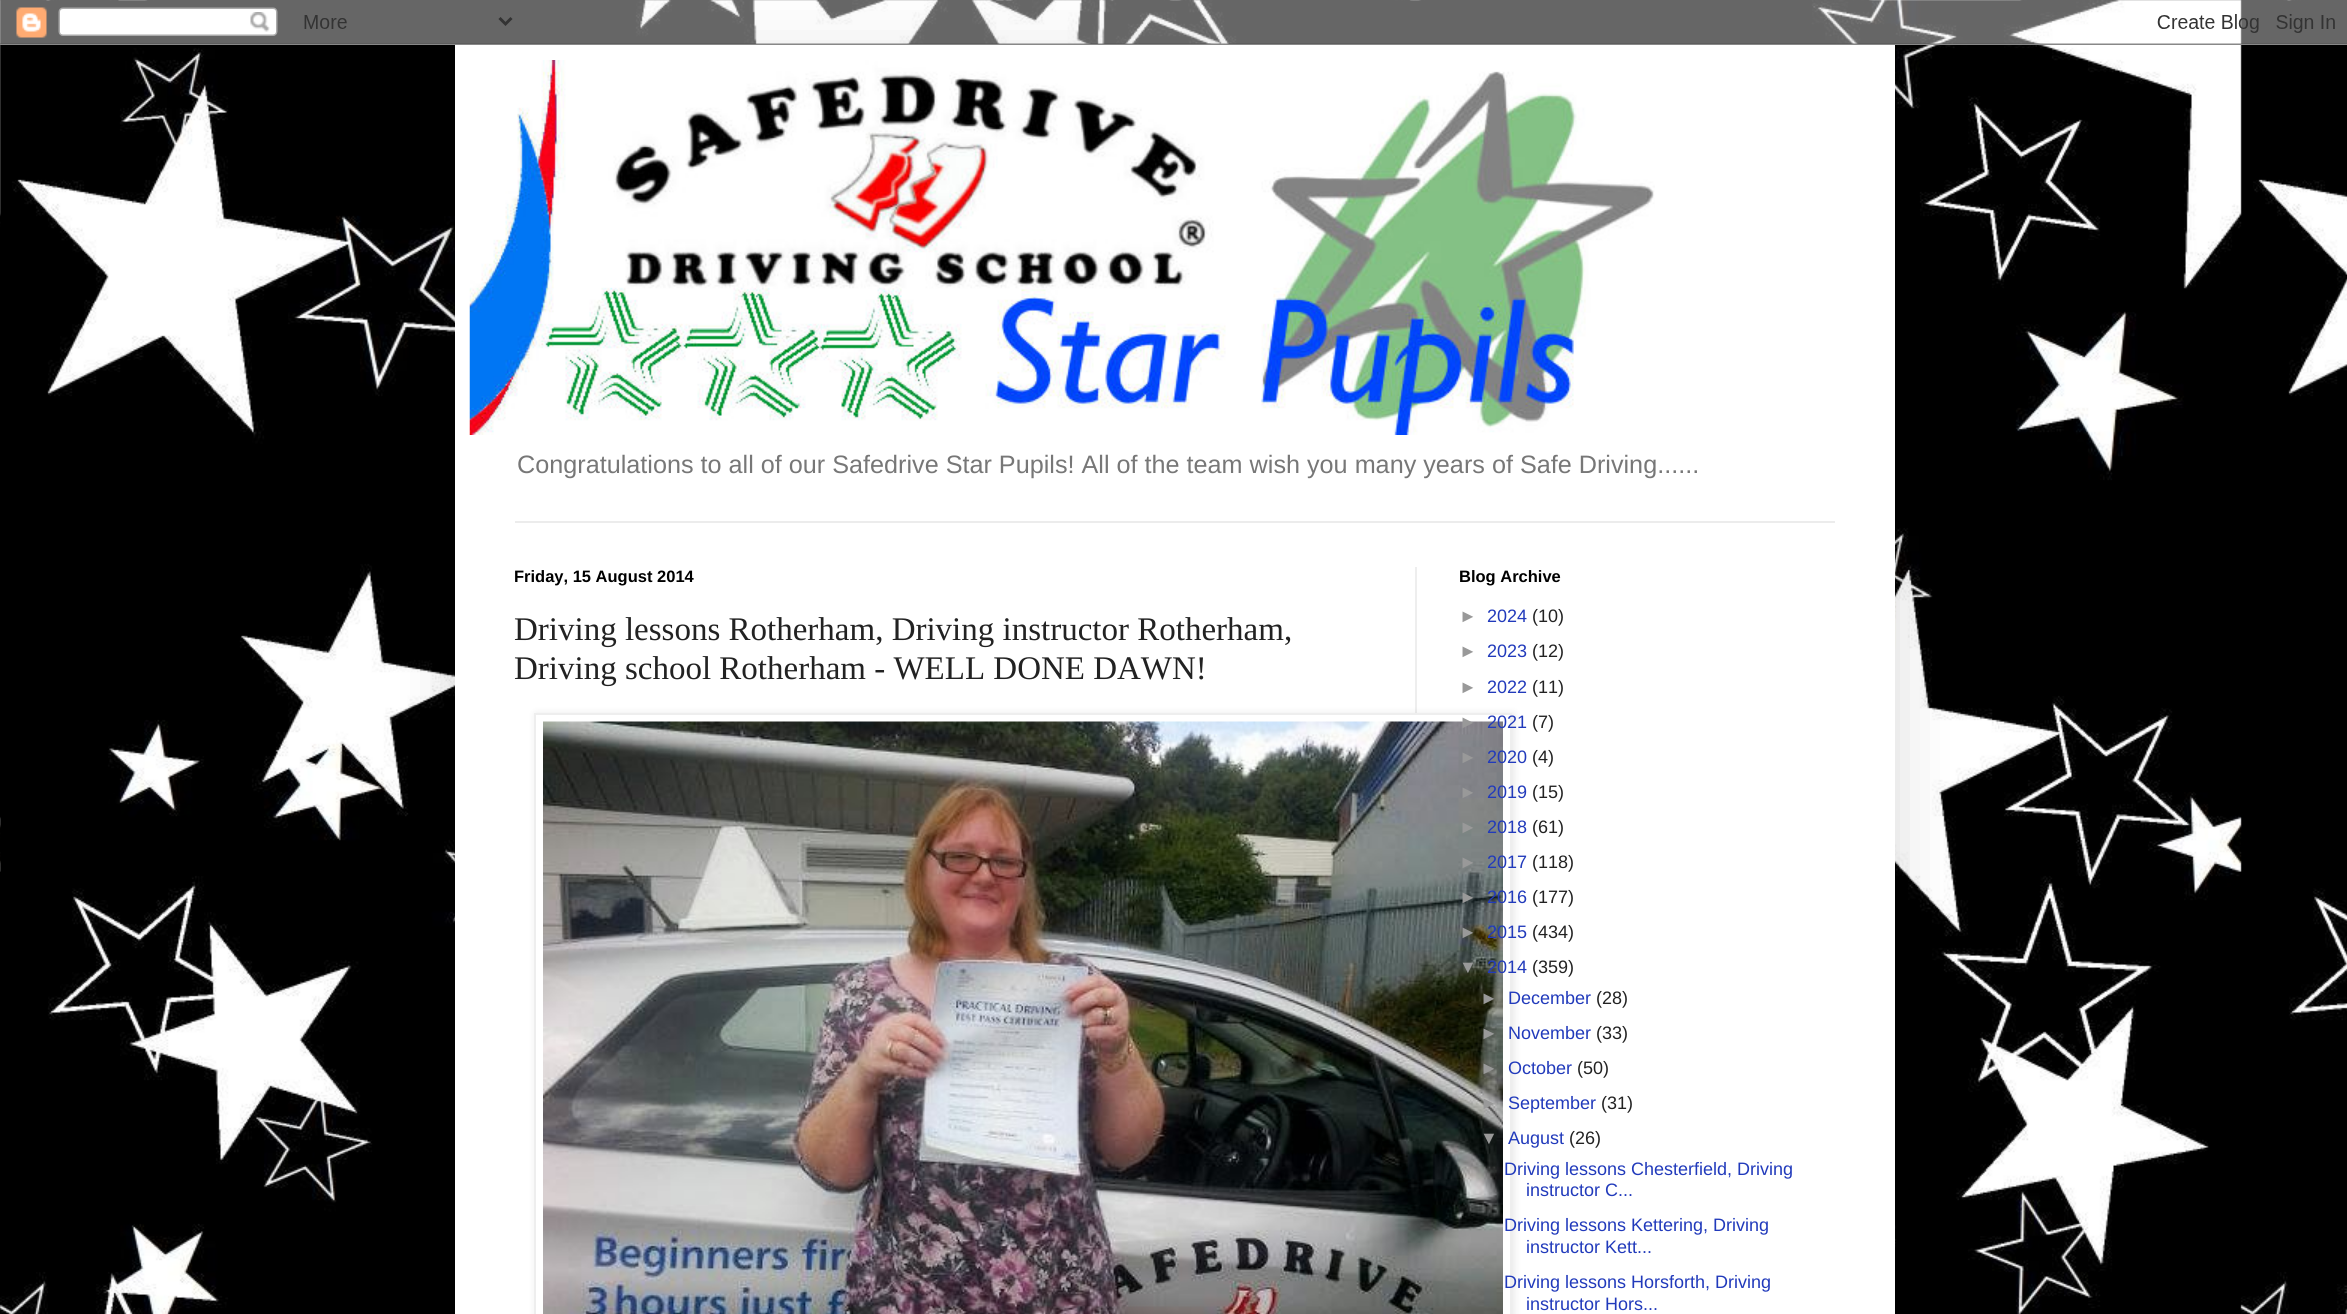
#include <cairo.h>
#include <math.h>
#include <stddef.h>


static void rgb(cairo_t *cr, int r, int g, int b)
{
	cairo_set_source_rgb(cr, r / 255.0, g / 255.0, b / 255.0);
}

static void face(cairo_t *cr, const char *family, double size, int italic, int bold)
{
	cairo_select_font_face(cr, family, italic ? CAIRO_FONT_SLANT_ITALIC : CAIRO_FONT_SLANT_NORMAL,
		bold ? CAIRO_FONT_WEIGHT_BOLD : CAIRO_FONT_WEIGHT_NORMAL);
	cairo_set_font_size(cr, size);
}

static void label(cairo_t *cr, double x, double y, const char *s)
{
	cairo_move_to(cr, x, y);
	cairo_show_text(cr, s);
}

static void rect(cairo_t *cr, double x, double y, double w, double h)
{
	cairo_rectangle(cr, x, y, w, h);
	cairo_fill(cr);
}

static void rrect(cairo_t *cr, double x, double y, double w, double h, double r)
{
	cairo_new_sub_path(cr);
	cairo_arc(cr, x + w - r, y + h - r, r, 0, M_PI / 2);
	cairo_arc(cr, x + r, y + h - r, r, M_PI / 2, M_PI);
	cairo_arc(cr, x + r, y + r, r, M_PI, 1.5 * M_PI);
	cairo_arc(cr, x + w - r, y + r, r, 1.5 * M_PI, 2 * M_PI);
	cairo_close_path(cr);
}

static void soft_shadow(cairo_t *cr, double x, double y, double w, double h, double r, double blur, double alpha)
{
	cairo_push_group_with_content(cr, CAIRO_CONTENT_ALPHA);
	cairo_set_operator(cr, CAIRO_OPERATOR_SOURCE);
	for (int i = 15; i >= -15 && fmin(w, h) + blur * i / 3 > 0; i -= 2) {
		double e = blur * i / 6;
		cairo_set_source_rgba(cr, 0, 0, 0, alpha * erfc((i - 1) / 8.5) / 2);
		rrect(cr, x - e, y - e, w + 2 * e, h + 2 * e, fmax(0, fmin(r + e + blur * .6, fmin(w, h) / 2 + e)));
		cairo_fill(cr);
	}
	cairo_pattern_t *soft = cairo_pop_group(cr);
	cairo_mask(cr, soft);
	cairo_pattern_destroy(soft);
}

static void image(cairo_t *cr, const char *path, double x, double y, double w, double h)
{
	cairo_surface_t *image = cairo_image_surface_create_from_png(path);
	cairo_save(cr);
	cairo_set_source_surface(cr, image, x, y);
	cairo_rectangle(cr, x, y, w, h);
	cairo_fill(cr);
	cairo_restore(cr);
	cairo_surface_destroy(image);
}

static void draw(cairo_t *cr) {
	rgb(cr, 255, 255, 255);
	cairo_paint(cr);
	image(cr, "image0.png", 0, 0, 2347, 1314);
	rgb(cr, 0, 0, 0);
	soft_shadow(cr, 455, 45, 1440, 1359, 0, 30, 0.15);
	image(cr, "image1.png", 0, 0, 2347, 45);
	rgb(cr, 255, 255, 255);
	rect(cr, 455, 45, 1440, 1269);
	image(cr, "image2.png", 469, 60, 1186, 375);
	face(cr, "Liberation Sans", 25.2, 0, 0);
	rgb(cr, 119, 119, 119);
	label(cr, 517, 473, "Congratulations to all of our Safedrive Star Pupils! All of the team wish you many years of Safe Driving......");
	rgb(cr, 236, 236, 236);
	rect(cr, 515, 521, 1320, 2);
	rgb(cr, 238, 238, 238);
	rect(cr, 1415, 567, 2, 146);
	face(cr, "Liberation Sans", 16.5, 0, 1);
	rgb(cr, 0, 0, 0);
	label(cr, 514, 582, "Friday, 15 August 2014");
	face(cr, "Liberation Serif", 33, 0, 0);
	rgb(cr, 34, 34, 34);
	label(cr, 514, 640, "Driving lessons Rotherham, Driving instructor Rotherham,");
	label(cr, 514, 679, "Driving school Rotherham - WELL DONE DAWN!");
	rgb(cr, 0, 0, 0);
	soft_shadow(cr, 536, 714, 978, 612, 0, 4, 0.1);
	rgb(cr, 255, 255, 255);
	cairo_rectangle(cr, 535, 714, 976, 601);
	cairo_fill_preserve(cr);
	rgb(cr, 238, 238, 238);
	cairo_stroke(cr);
	image(cr, "image3.png", 543, 721, 960, 593);
	face(cr, "Liberation Sans", 16.5, 0, 1);
	rgb(cr, 0, 0, 0);
	label(cr, 1459, 582, "Blog Archive");
	face(cr, "Liberation Sans", 18, 0, 0);
	rgb(cr, 153, 153, 153);
	label(cr, 1459, 622, "►");
	rgb(cr, 33, 58, 187);
	label(cr, 1487, 622, "2024");
	rgb(cr, 34, 34, 34);
	label(cr, 1532, 622, "(10)");
	rgb(cr, 153, 153, 153);
	label(cr, 1459, 657, "►");
	rgb(cr, 33, 58, 187);
	label(cr, 1487, 657, "2023");
	rgb(cr, 34, 34, 34);
	label(cr, 1532, 657, "(12)");
	rgb(cr, 153, 153, 153);
	label(cr, 1459, 693, "►");
	rgb(cr, 33, 58, 187);
	label(cr, 1487, 693, "2022");
	rgb(cr, 34, 34, 34);
	label(cr, 1532, 693, "(11)");
	rgb(cr, 153, 153, 153);
	label(cr, 1459, 728, "►");
	rgb(cr, 33, 58, 187);
	label(cr, 1487, 728, "2021");
	rgb(cr, 34, 34, 34);
	label(cr, 1532, 728, "(7)");
	rgb(cr, 153, 153, 153);
	label(cr, 1459, 763, "►");
	rgb(cr, 33, 58, 187);
	label(cr, 1487, 763, "2020");
	rgb(cr, 34, 34, 34);
	label(cr, 1532, 763, "(4)");
	rgb(cr, 153, 153, 153);
	label(cr, 1459, 798, "►");
	rgb(cr, 33, 58, 187);
	label(cr, 1487, 798, "2019");
	rgb(cr, 34, 34, 34);
	label(cr, 1532, 798, "(15)");
	rgb(cr, 153, 153, 153);
	label(cr, 1459, 833, "►");
	rgb(cr, 33, 58, 187);
	label(cr, 1487, 833, "2018");
	rgb(cr, 34, 34, 34);
	label(cr, 1532, 833, "(61)");
	rgb(cr, 153, 153, 153);
	label(cr, 1459, 868, "►");
	rgb(cr, 33, 58, 187);
	label(cr, 1487, 868, "2017");
	rgb(cr, 34, 34, 34);
	label(cr, 1532, 868, "(118)");
	rgb(cr, 153, 153, 153);
	label(cr, 1459, 903, "►");
	rgb(cr, 33, 58, 187);
	label(cr, 1487, 903, "2016");
	rgb(cr, 34, 34, 34);
	label(cr, 1532, 903, "(177)");
	rgb(cr, 153, 153, 153);
	label(cr, 1459, 938, "►");
	rgb(cr, 33, 58, 187);
	label(cr, 1487, 938, "2015");
	rgb(cr, 34, 34, 34);
	label(cr, 1532, 938, "(434)");
	rgb(cr, 153, 153, 153);
	label(cr, 1459, 973, "▼");
	rgb(cr, 33, 58, 187);
	label(cr, 1487, 973, "2014");
	rgb(cr, 34, 34, 34);
	label(cr, 1532, 973, "(359)");
	rgb(cr, 153, 153, 153);
	label(cr, 1480, 1004, "►");
	rgb(cr, 33, 58, 187);
	label(cr, 1508, 1004, "December");
	rgb(cr, 34, 34, 34);
	label(cr, 1596, 1004, "(28)");
	rgb(cr, 153, 153, 153);
	label(cr, 1480, 1039, "►");
	rgb(cr, 33, 58, 187);
	label(cr, 1508, 1039, "November");
	rgb(cr, 34, 34, 34);
	label(cr, 1596, 1039, "(33)");
	rgb(cr, 153, 153, 153);
	label(cr, 1480, 1074, "►");
	rgb(cr, 33, 58, 187);
	label(cr, 1508, 1074, "October");
	rgb(cr, 34, 34, 34);
	label(cr, 1577, 1074, "(50)");
	rgb(cr, 153, 153, 153);
	label(cr, 1480, 1109, "►");
	rgb(cr, 33, 58, 187);
	label(cr, 1508, 1109, "September");
	rgb(cr, 34, 34, 34);
	label(cr, 1601, 1109, "(31)");
	rgb(cr, 153, 153, 153);
	label(cr, 1480, 1144, "▼");
	rgb(cr, 33, 58, 187);
	label(cr, 1508, 1144, "August");
	rgb(cr, 34, 34, 34);
	label(cr, 1569, 1144, "(26)");
	rgb(cr, 33, 58, 187);
	label(cr, 1504, 1175, "Driving lessons Chesterfield, Driving");
	label(cr, 1526, 1196, "instructor C...");
	label(cr, 1504, 1231, "Driving lessons Kettering, Driving");
	label(cr, 1526, 1253, "instructor Kett...");
	label(cr, 1504, 1288, "Driving lessons Horsforth, Driving");
	label(cr, 1526, 1310, "instructor Hors...");
}

int main(void) {
	cairo_surface_t *surface = cairo_image_surface_create(CAIRO_FORMAT_RGB24, 2347, 1314);
	cairo_t *cr = cairo_create(surface);
	cairo_font_options_t *options = cairo_font_options_create();
	cairo_font_options_set_hint_metrics(options, CAIRO_HINT_METRICS_OFF);
	cairo_font_options_set_hint_style(options, CAIRO_HINT_STYLE_NONE);
	cairo_set_font_options(cr, options);
	cairo_set_miter_limit(cr, 4);
	draw(cr);
	cairo_surface_write_to_png(surface, "render.png");
	cairo_font_options_destroy(options);
	cairo_destroy(cr);
	cairo_surface_destroy(surface);
	return 0;
}
